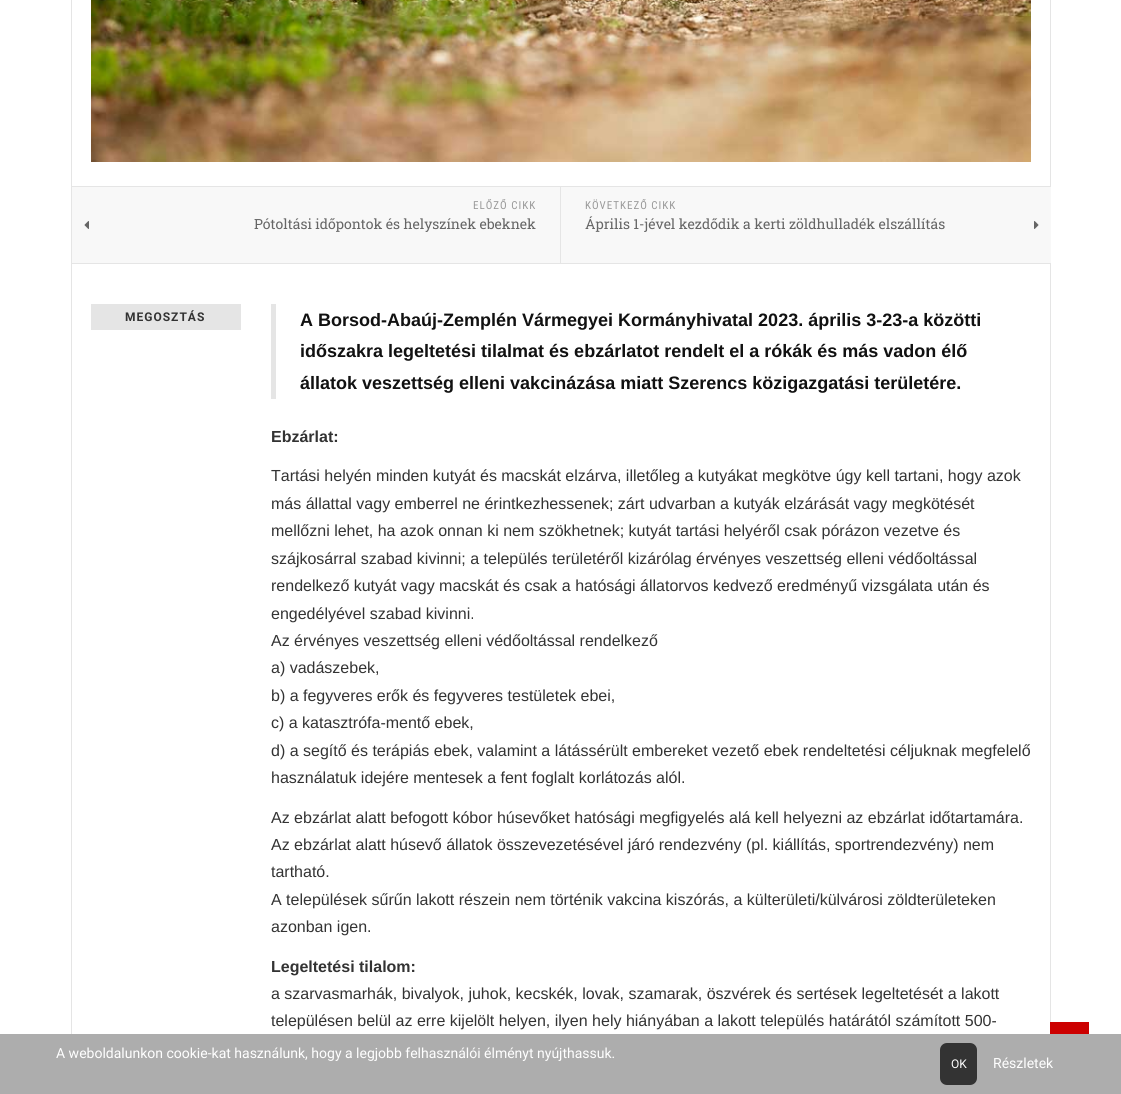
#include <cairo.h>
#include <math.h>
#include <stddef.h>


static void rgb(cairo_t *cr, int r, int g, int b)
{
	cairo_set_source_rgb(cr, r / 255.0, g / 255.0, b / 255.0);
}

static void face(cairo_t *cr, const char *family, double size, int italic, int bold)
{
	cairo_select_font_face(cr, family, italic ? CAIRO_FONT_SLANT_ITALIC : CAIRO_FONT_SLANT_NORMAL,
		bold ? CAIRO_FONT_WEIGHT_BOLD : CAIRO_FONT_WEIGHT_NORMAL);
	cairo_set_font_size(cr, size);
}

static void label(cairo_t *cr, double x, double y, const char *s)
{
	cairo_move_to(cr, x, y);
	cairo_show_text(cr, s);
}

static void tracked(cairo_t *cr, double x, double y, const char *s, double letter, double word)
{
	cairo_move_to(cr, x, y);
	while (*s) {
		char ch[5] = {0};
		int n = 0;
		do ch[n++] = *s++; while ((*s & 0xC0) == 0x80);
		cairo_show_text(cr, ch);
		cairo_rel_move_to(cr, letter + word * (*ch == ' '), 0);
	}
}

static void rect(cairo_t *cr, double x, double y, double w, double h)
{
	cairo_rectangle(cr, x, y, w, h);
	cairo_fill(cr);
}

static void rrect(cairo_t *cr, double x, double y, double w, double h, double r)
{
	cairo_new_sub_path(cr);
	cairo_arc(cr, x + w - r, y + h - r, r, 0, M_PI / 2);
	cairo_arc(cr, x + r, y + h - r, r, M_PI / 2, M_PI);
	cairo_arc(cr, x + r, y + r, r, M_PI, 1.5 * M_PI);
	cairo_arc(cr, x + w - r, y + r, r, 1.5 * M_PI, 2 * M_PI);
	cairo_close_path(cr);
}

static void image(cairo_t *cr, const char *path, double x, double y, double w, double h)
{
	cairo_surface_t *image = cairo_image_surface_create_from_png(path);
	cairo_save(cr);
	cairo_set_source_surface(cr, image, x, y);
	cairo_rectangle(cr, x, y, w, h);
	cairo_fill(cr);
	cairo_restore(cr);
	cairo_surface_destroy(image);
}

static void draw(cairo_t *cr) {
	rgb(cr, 255, 255, 255);
	cairo_paint(cr);
	cairo_rectangle(cr, 71.5, -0.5, 979, 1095);
	rgb(cr, 229, 229, 229);
	cairo_set_line_width(cr, 1);
	cairo_stroke(cr);
	image(cr, "image0.png", 91, 0, 940, 162);
	rect(cr, 71, 186, 980, 1);
	rect(cr, 71, 263, 980, 1);
	rect(cr, 560, 187, 1, 76);
	rgb(cr, 248, 248, 248);
	rect(cr, 72, 187, 488, 76);
	face(cr, "Roboto Condensed", 11, 0, 0);
	rgb(cr, 153, 153, 153);
	tracked(cr, 473, 209, "ELŐZŐ CIKK", 1, 0);
	image(cr, "image1.png", 84, 221, 5, 8);
	face(cr, "Roboto Slab", 14, 0, 0);
	rgb(cr, 102, 102, 102);
	label(cr, 254, 229, "Pótoltási időpontok és helyszínek ebeknek");
	rgb(cr, 248, 248, 248);
	rect(cr, 561, 187, 490, 76);
	face(cr, "Roboto Condensed", 11, 0, 0);
	rgb(cr, 153, 153, 153);
	tracked(cr, 585, 209, "KÖVETKEZŐ CIKK", 1, 0);
	face(cr, "Roboto Slab", 14, 0, 0);
	rgb(cr, 102, 102, 102);
	label(cr, 585, 229, "Április 1-jével kezdődik a kerti zöldhulladék elszállítás");
	image(cr, "image2.png", 1034, 221, 5, 8);
	rgb(cr, 229, 229, 229);
	rect(cr, 91, 304, 150, 26);
	face(cr, "Roboto", 12, 0, 1);
	rgb(cr, 51, 51, 51);
	tracked(cr, 125, 321, "MEGOSZTÁS", 1, 0);
	rgb(cr, 229, 229, 229);
	rect(cr, 271, 304, 5, 95);
	face(cr, "Liberation Sans", 18, 0, 1);
	rgb(cr, 17, 17, 17);
	label(cr, 300, 326, "A Borsod-Abaúj-Zemplén Vármegyei Kormányhivatal 2023. április 3-23-a közötti");
	label(cr, 300, 357, "időszakra legeltetési tilalmat és ebzárlatot rendelt el a rókák és más vadon élő");
	label(cr, 300, 389, "állatok veszettség elleni vakcinázása miatt Szerencs közigazgatási területére.");
	face(cr, "Liberation Sans", 16, 0, 1);
	rgb(cr, 51, 51, 51);
	label(cr, 271, 442, "Ebzárlat:");
	face(cr, "Liberation Sans", 16, 0, 0);
	label(cr, 271, 481, "Tartási helyén minden kutyát és macskát elzárva, illetőleg a kutyákat megkötve úgy kell tartani, hogy azok");
	label(cr, 271, 509, "más állattal vagy emberrel ne érintkezhessenek; zárt udvarban a kutyák elzárását vagy megkötését");
	label(cr, 271, 536, "mellőzni lehet, ha azok onnan ki nem szökhetnek; kutyát tartási helyéről csak pórázon vezetve és");
	label(cr, 271, 564, "szájkosárral szabad kivinni; a település területéről kizárólag érvényes veszettség elleni védőoltással");
	label(cr, 271, 591, "rendelkező kutyát vagy macskát és csak a hatósági állatorvos kedvező eredményű vizsgálata után és");
	label(cr, 271, 619, "engedélyével szabad kivinni.");
	label(cr, 271, 646, "Az érvényes veszettség elleni védőoltással rendelkező");
	label(cr, 271, 673, "a) vadászebek,");
	label(cr, 271, 701, "b) a fegyveres erők és fegyveres testületek ebei,");
	label(cr, 271, 728, "c) a katasztrófa-mentő ebek,");
	label(cr, 271, 756, "d) a segítő és terápiás ebek, valamint a látássérült embereket vezető ebek rendeltetési céljuknak megfelelő");
	label(cr, 271, 783, "használatuk idejére mentesek a fent foglalt korlátozás alól.");
	label(cr, 271, 823, "Az ebzárlat alatt befogott kóbor húsevőket hatósági megfigyelés alá kell helyezni az ebzárlat időtartamára.");
	label(cr, 271, 850, "Az ebzárlat alatt húsevő állatok összevezetésével járó rendezvény (pl. kiállítás, sportrendezvény) nem");
	label(cr, 271, 877, "tartható.");
	label(cr, 271, 905, "A települések sűrűn lakott részein nem történik vakcina kiszórás, a külterületi/külvárosi zöldterületeken");
	label(cr, 271, 932, "azonban igen.");
	face(cr, "Liberation Sans", 16, 0, 1);
	label(cr, 271, 972, "Legeltetési tilalom:");
	face(cr, "Liberation Sans", 16, 0, 0);
	label(cr, 271, 999, "a szarvasmarhák, bivalyok, juhok, kecskék, lovak, szamarak, öszvérek és sertések legeltetését a lakott");
	label(cr, 271, 1026, "településen belül az erre kijelölt helyen, ilyen hely hiányában a lakott település határától számított 500-");
	rgb(cr, 204, 0, 0);
	rect(cr, 1050, 1022, 39, 12);
	rgb(cr, 173, 173, 173);
	rect(cr, 0, 1034, 1121, 60);
	face(cr, "Roboto", 14, 0, 0);
	rgb(cr, 255, 255, 255);
	label(cr, 56, 1058, "A weboldalunkon cookie-kat használunk, hogy a legjobb felhasználói élményt nyújthassuk.");
	rgb(cr, 51, 51, 51);
	rrect(cr, 940, 1043, 37, 42, 7);
	cairo_fill(cr);
	face(cr, "Roboto", 12, 0, 0);
	rgb(cr, 255, 255, 255);
	label(cr, 951, 1068, "OK");
	face(cr, "Roboto", 14, 0, 0);
	label(cr, 993, 1068, "Részletek");
}

int main(void) {
	cairo_surface_t *surface = cairo_image_surface_create(CAIRO_FORMAT_RGB24, 1121, 1094);
	cairo_t *cr = cairo_create(surface);
	cairo_font_options_t *options = cairo_font_options_create();
	cairo_font_options_set_hint_metrics(options, CAIRO_HINT_METRICS_OFF);
	cairo_font_options_set_hint_style(options, CAIRO_HINT_STYLE_NONE);
	cairo_set_font_options(cr, options);
	cairo_set_miter_limit(cr, 4);
	draw(cr);
	cairo_surface_write_to_png(surface, "render.png");
	cairo_font_options_destroy(options);
	cairo_destroy(cr);
	cairo_surface_destroy(surface);
	return 0;
}
